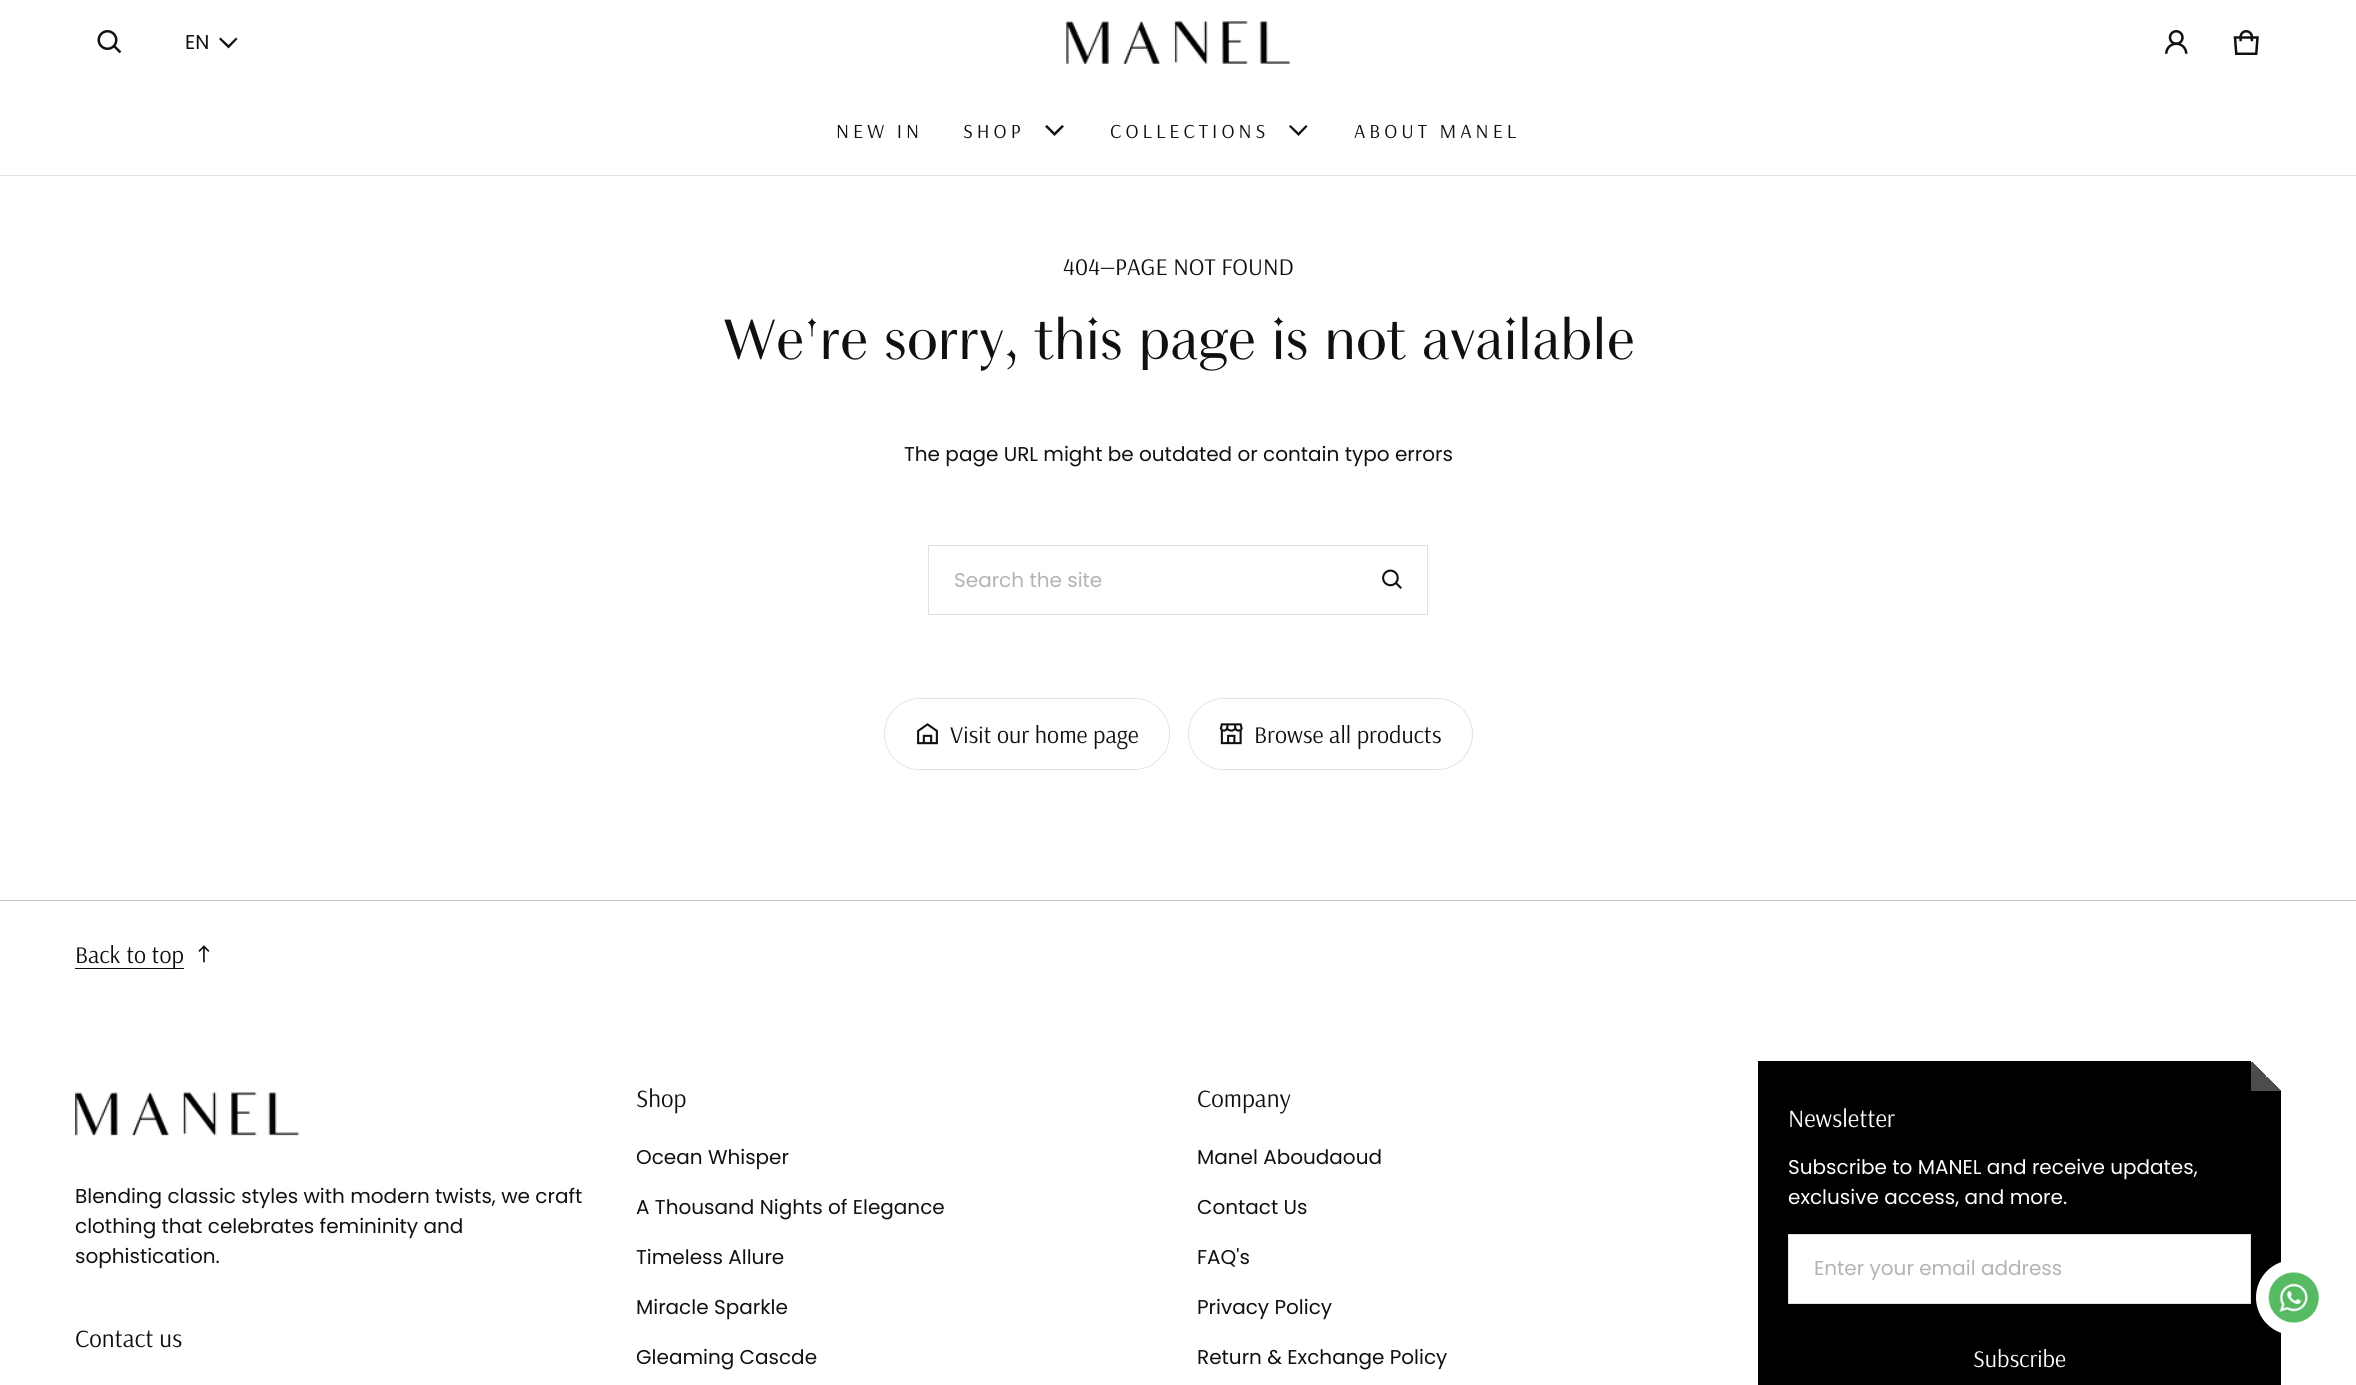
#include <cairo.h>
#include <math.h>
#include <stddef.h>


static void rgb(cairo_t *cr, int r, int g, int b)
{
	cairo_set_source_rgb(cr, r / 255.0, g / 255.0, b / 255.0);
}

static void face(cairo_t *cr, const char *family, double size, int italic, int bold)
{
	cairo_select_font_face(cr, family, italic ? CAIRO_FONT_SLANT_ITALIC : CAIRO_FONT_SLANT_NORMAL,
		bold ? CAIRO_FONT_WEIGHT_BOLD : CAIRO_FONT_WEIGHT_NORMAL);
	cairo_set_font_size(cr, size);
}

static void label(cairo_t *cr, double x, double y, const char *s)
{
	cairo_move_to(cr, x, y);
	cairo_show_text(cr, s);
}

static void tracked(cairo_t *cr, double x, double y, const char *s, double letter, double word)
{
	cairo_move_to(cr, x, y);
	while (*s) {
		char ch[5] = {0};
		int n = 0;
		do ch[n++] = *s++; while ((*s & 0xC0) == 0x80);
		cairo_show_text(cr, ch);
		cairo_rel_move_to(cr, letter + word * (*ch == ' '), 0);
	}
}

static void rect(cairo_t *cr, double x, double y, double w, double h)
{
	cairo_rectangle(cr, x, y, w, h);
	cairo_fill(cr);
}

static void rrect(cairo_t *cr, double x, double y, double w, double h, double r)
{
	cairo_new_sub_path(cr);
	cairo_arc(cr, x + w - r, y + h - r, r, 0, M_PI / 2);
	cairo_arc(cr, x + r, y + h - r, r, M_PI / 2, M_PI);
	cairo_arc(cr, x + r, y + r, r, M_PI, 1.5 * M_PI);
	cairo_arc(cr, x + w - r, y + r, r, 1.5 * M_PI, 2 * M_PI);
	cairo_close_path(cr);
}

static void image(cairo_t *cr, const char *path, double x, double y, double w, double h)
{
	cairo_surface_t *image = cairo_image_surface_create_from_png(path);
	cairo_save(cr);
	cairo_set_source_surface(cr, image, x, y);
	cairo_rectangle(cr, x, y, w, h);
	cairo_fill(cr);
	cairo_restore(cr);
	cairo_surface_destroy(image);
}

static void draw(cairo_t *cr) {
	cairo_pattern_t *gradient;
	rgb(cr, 255, 255, 255);
	cairo_paint(cr);
	rgb(cr, 226, 226, 226);
	rect(cr, 0, 175, 2356, 1);
	image(cr, "image0.png", 97, 30, 25, 24);
	face(cr, "Poppins", 20, 0, 0);
	rgb(cr, 16, 16, 16);
	label(cr, 185, 49, "EN");
	cairo_set_fill_rule(cr, CAIRO_FILL_RULE_EVEN_ODD);
	cairo_new_path(cr);
	cairo_move_to(cr, 228.5, 45);
	cairo_line_to(cr, 236, 37.5);
	cairo_line_to(cr, 237.5, 39);
	cairo_line_to(cr, 228.5, 48.5);
	cairo_line_to(cr, 219, 39);
	cairo_line_to(cr, 220.5, 37.5);
	cairo_close_path(cr);
	cairo_fill(cr);
	image(cr, "image1.png", 1066, 21, 225, 44);
	image(cr, "image2.png", 2165, 30, 23, 24);
	image(cr, "image3.png", 2233, 30, 26, 25);
	face(cr, "Arsenal", 20, 0, 0);
	tracked(cr, 836, 138, "NEW IN", 4, 0);
	tracked(cr, 963, 138, "SHOP", 4, 0);
	cairo_new_path(cr);
	cairo_move_to(cr, 1054.5, 132.5);
	cairo_line_to(cr, 1062, 125);
	cairo_line_to(cr, 1064, 126.5);
	cairo_line_to(cr, 1054.5, 136);
	cairo_line_to(cr, 1045, 126.5);
	cairo_line_to(cr, 1047, 125);
	cairo_close_path(cr);
	cairo_fill(cr);
	tracked(cr, 1110, 138, "COLLECTIONS", 4, 0);
	cairo_new_path(cr);
	cairo_move_to(cr, 1298.5, 132.5);
	cairo_line_to(cr, 1306, 125);
	cairo_line_to(cr, 1307.5, 126.5);
	cairo_line_to(cr, 1298.5, 136);
	cairo_line_to(cr, 1289, 126.5);
	cairo_line_to(cr, 1290.5, 125);
	cairo_close_path(cr);
	cairo_fill(cr);
	tracked(cr, 1354, 138, "ABOUT MANEL", 4, 0);
	face(cr, "Arsenal", 24, 0, 0);
	label(cr, 1063, 275, "404—PAGE NOT FOUND");
	face(cr, "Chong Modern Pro", 59.4, 0, 0);
	label(cr, 723, 359, "We're sorry, this page is not available");
	face(cr, "Poppins", 20, 0, 0);
	label(cr, 904, 461, "The page URL might be outdated or contain typo errors");
	cairo_rectangle(cr, 928.5, 545.5, 499, 69);
	rgb(cr, 226, 226, 226);
	cairo_set_line_width(cr, 1);
	cairo_stroke(cr);
	rgb(cr, 179, 179, 179);
	label(cr, 954, 587, "Search the site");
	image(cr, "image4.png", 1382, 569, 20, 20);
	rrect(cr, 884.5, 698.5, 285, 71, 35.5);
	rgb(cr, 226, 226, 226);
	cairo_stroke(cr);
	rgb(cr, 255, 255, 255);
	rrect(cr, 885, 699, 284, 70, 35);
	cairo_fill(cr);
	image(cr, "image5.png", 917, 723, 21, 22);
	face(cr, "Arsenal", 24, 0, 0);
	rgb(cr, 16, 16, 16);
	label(cr, 950, 743, "Visit our home page");
	rrect(cr, 1188.5, 698.5, 284, 71, 35.5);
	rgb(cr, 226, 226, 226);
	cairo_stroke(cr);
	rgb(cr, 255, 255, 255);
	rrect(cr, 1189, 699, 282, 70, 35);
	cairo_fill(cr);
	image(cr, "image6.png", 1219, 723, 24, 22);
	rgb(cr, 16, 16, 16);
	label(cr, 1254, 743, "Browse all products");
	rgb(cr, 193, 193, 193);
	rect(cr, 0, 900, 2356, 1);
	rgb(cr, 16, 16, 16);
	rect(cr, 75, 968, 109, 1);
	label(cr, 75, 963, "Back to top");
	image(cr, "image7.png", 198, 945, 12, 18);
	image(cr, "image8.png", 75, 1092, 224, 44);
	face(cr, "Poppins", 20, 0, 0);
	label(cr, 75, 1203, "Blending classic styles with modern twists, we craft");
	label(cr, 75, 1233, "clothing that celebrates femininity and");
	label(cr, 75, 1263, "sophistication.");
	face(cr, "Arsenal", 25, 0, 0);
	label(cr, 75, 1347, "Contact us");
	label(cr, 636, 1107, "Shop");
	face(cr, "Poppins", 20, 0, 0);
	label(cr, 636, 1164, "Ocean Whisper");
	label(cr, 636, 1214, "A Thousand Nights of Elegance");
	label(cr, 636, 1264, "Timeless Allure");
	label(cr, 636, 1314, "Miracle Sparkle");
	label(cr, 636, 1364, "Gleaming Cascde");
	face(cr, "Arsenal", 25, 0, 0);
	label(cr, 1197, 1107, "Company");
	face(cr, "Poppins", 20, 0, 0);
	label(cr, 1197, 1164, "Manel Aboudaoud");
	label(cr, 1197, 1214, "Contact Us");
	label(cr, 1197, 1264, "FAQ's");
	label(cr, 1197, 1314, "Privacy Policy");
	label(cr, 1197, 1364, "Return & Exchange Policy");
	rgb(cr, 0, 0, 0);
	rect(cr, 1758, 1061, 523, 324);
	gradient = cairo_pattern_create_linear(2251, 1091, 2281, 1061);
	cairo_pattern_add_color_stop_rgba(gradient, 0.5, 0.302, 0.302, 0.302, 1);
	cairo_pattern_add_color_stop_rgba(gradient, 0.5, 1, 1, 1, 1);
	cairo_set_source(cr, gradient);
	cairo_pattern_destroy(gradient);
	rect(cr, 2251, 1061, 30, 30);
	face(cr, "Arsenal", 25, 0, 0);
	rgb(cr, 255, 255, 255);
	label(cr, 1788, 1127, "Newsletter");
	face(cr, "Poppins", 20, 0, 0);
	label(cr, 1788, 1174, "Subscribe to MANEL and receive updates,");
	label(cr, 1788, 1204, "exclusive access, and more.");
	cairo_rectangle(cr, 1788.5, 1234.5, 462, 69);
	cairo_fill_preserve(cr);
	rgb(cr, 226, 226, 226);
	cairo_stroke(cr);
	rgb(cr, 179, 179, 179);
	label(cr, 1814, 1275, "Enter your email address");
	face(cr, "Arsenal", 24, 0, 0);
	rgb(cr, 255, 255, 255);
	label(cr, 1973, 1367, "Subscribe");
	cairo_new_path(cr);
	cairo_arc(cr, 2293.5, 1297.5, 37.5, 0, 2 * M_PI);
	cairo_fill(cr);
	image(cr, "image9.png", 2268, 1272, 51, 51);
}

int main(void) {
	cairo_surface_t *surface = cairo_image_surface_create(CAIRO_FORMAT_RGB24, 2356, 1385);
	cairo_t *cr = cairo_create(surface);
	cairo_font_options_t *options = cairo_font_options_create();
	cairo_font_options_set_hint_metrics(options, CAIRO_HINT_METRICS_OFF);
	cairo_font_options_set_hint_style(options, CAIRO_HINT_STYLE_NONE);
	cairo_set_font_options(cr, options);
	cairo_set_miter_limit(cr, 4);
	draw(cr);
	cairo_surface_write_to_png(surface, "render.png");
	cairo_font_options_destroy(options);
	cairo_destroy(cr);
	cairo_surface_destroy(surface);
	return 0;
}
